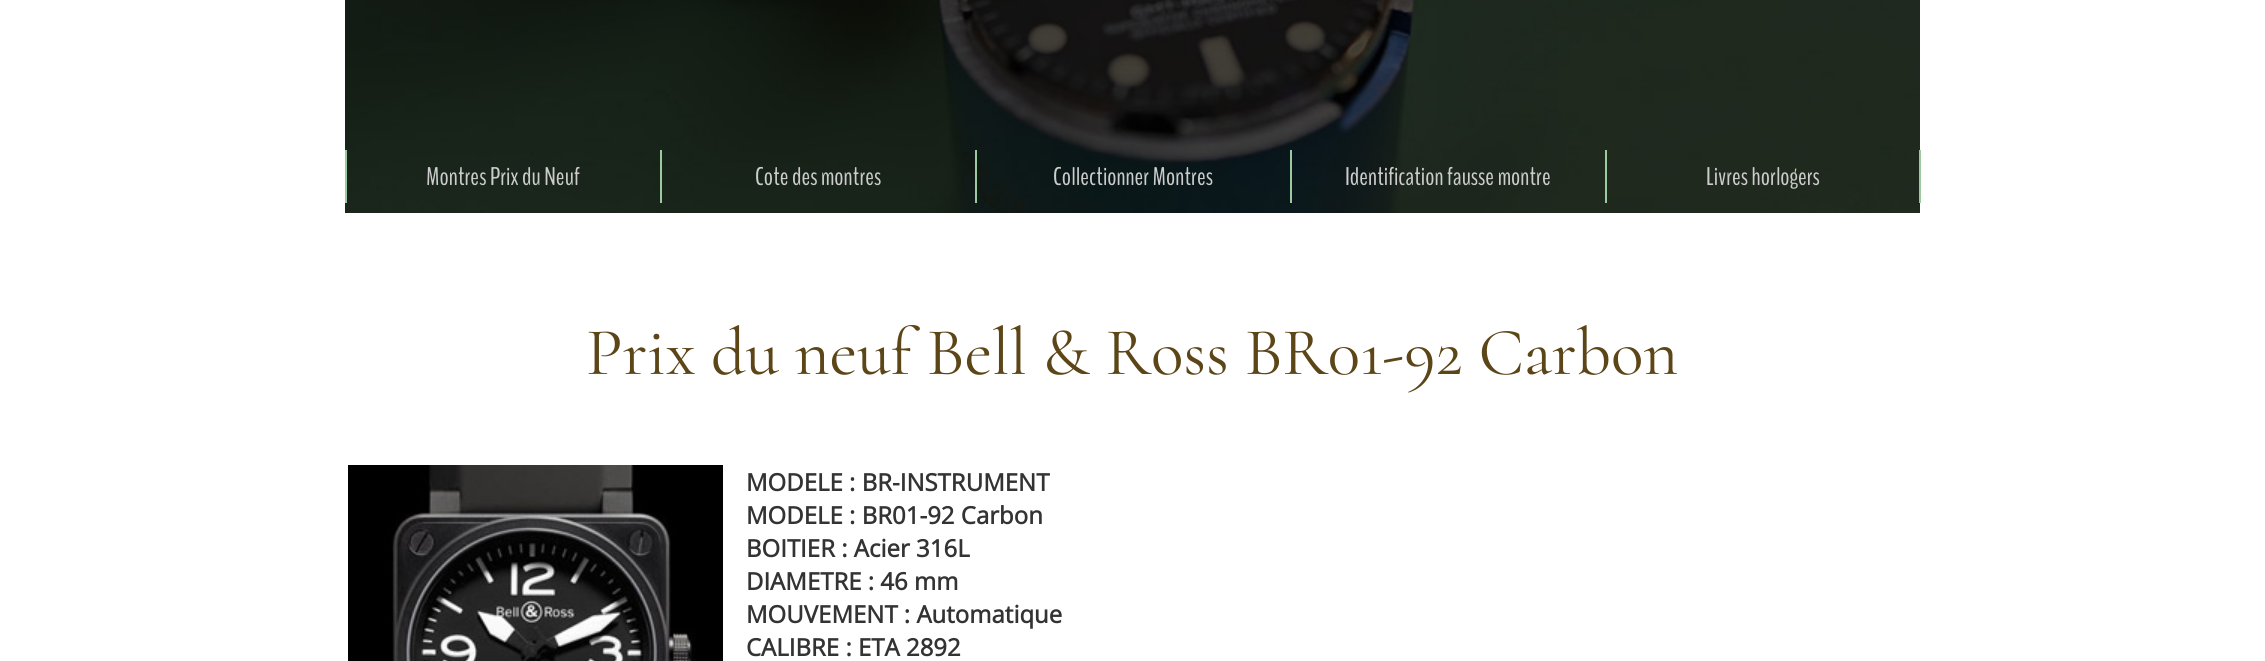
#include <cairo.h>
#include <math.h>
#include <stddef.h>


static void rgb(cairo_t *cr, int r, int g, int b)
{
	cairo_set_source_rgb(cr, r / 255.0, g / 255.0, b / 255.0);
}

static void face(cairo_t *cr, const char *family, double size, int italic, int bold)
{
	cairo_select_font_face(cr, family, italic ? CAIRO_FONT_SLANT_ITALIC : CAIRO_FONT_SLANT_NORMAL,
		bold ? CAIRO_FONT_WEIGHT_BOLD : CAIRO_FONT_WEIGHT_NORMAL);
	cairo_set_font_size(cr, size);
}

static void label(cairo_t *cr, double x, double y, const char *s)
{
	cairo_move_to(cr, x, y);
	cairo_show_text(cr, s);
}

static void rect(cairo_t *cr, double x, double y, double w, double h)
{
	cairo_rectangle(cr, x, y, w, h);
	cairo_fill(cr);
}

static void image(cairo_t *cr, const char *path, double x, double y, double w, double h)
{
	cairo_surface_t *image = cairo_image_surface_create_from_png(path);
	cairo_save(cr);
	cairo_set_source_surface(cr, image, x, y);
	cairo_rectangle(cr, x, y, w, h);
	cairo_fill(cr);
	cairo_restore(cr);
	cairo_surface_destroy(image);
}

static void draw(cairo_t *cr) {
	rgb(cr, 255, 255, 255);
	cairo_paint(cr);
	image(cr, "image0.png", 345, 0, 1575, 213);
	rgb(cr, 157, 201, 161);
	rect(cr, 345, 150, 2, 53);
	rect(cr, 660, 150, 2, 53);
	face(cr, "BenchNine", 25.5, 0, 0);
	rgb(cr, 204, 204, 204);
	label(cr, 426, 185, "Montres Prix du Neuf");
	rgb(cr, 157, 201, 161);
	rect(cr, 975, 150, 2, 53);
	rgb(cr, 204, 204, 204);
	label(cr, 755, 185, "Cote des montres");
	rgb(cr, 157, 201, 161);
	rect(cr, 1290, 150, 2, 53);
	rgb(cr, 204, 204, 204);
	label(cr, 1053, 185, "Collectionner Montres");
	rgb(cr, 157, 201, 161);
	rect(cr, 1605, 150, 2, 53);
	rgb(cr, 204, 204, 204);
	label(cr, 1345, 185, "Identification fausse montre");
	rgb(cr, 157, 201, 161);
	rect(cr, 1919, 150, 2, 53);
	rgb(cr, 204, 204, 204);
	label(cr, 1706, 185, "Livres horlogers");
	face(cr, "Cormorant Light", 67.5, 0, 0);
	rgb(cr, 92, 69, 23);
	label(cr, 586, 374, "Prix du neuf Bell & Ross BR01-92 Carbon");
	image(cr, "image1.png", 348, 465, 375, 196);
	face(cr, "Open Sans", 24, 0, 1);
	rgb(cr, 51, 51, 51);
	label(cr, 746, 491, "MODELE : BR-INSTRUMENT");
	label(cr, 746, 524, "MODELE : BR01-92 Carbon");
	label(cr, 746, 557, "BOITIER : Acier 316L");
	label(cr, 746, 590, "DIAMETRE : 46 mm");
	label(cr, 746, 623, "MOUVEMENT : Automatique");
	label(cr, 746, 656, "CALIBRE : ETA 2892");
}

int main(void) {
	cairo_surface_t *surface = cairo_image_surface_create(CAIRO_FORMAT_RGB24, 2265, 661);
	cairo_t *cr = cairo_create(surface);
	cairo_font_options_t *options = cairo_font_options_create();
	cairo_font_options_set_hint_metrics(options, CAIRO_HINT_METRICS_OFF);
	cairo_font_options_set_hint_style(options, CAIRO_HINT_STYLE_NONE);
	cairo_set_font_options(cr, options);
	cairo_set_miter_limit(cr, 4);
	draw(cr);
	cairo_surface_write_to_png(surface, "render.png");
	cairo_font_options_destroy(options);
	cairo_destroy(cr);
	cairo_surface_destroy(surface);
	return 0;
}
